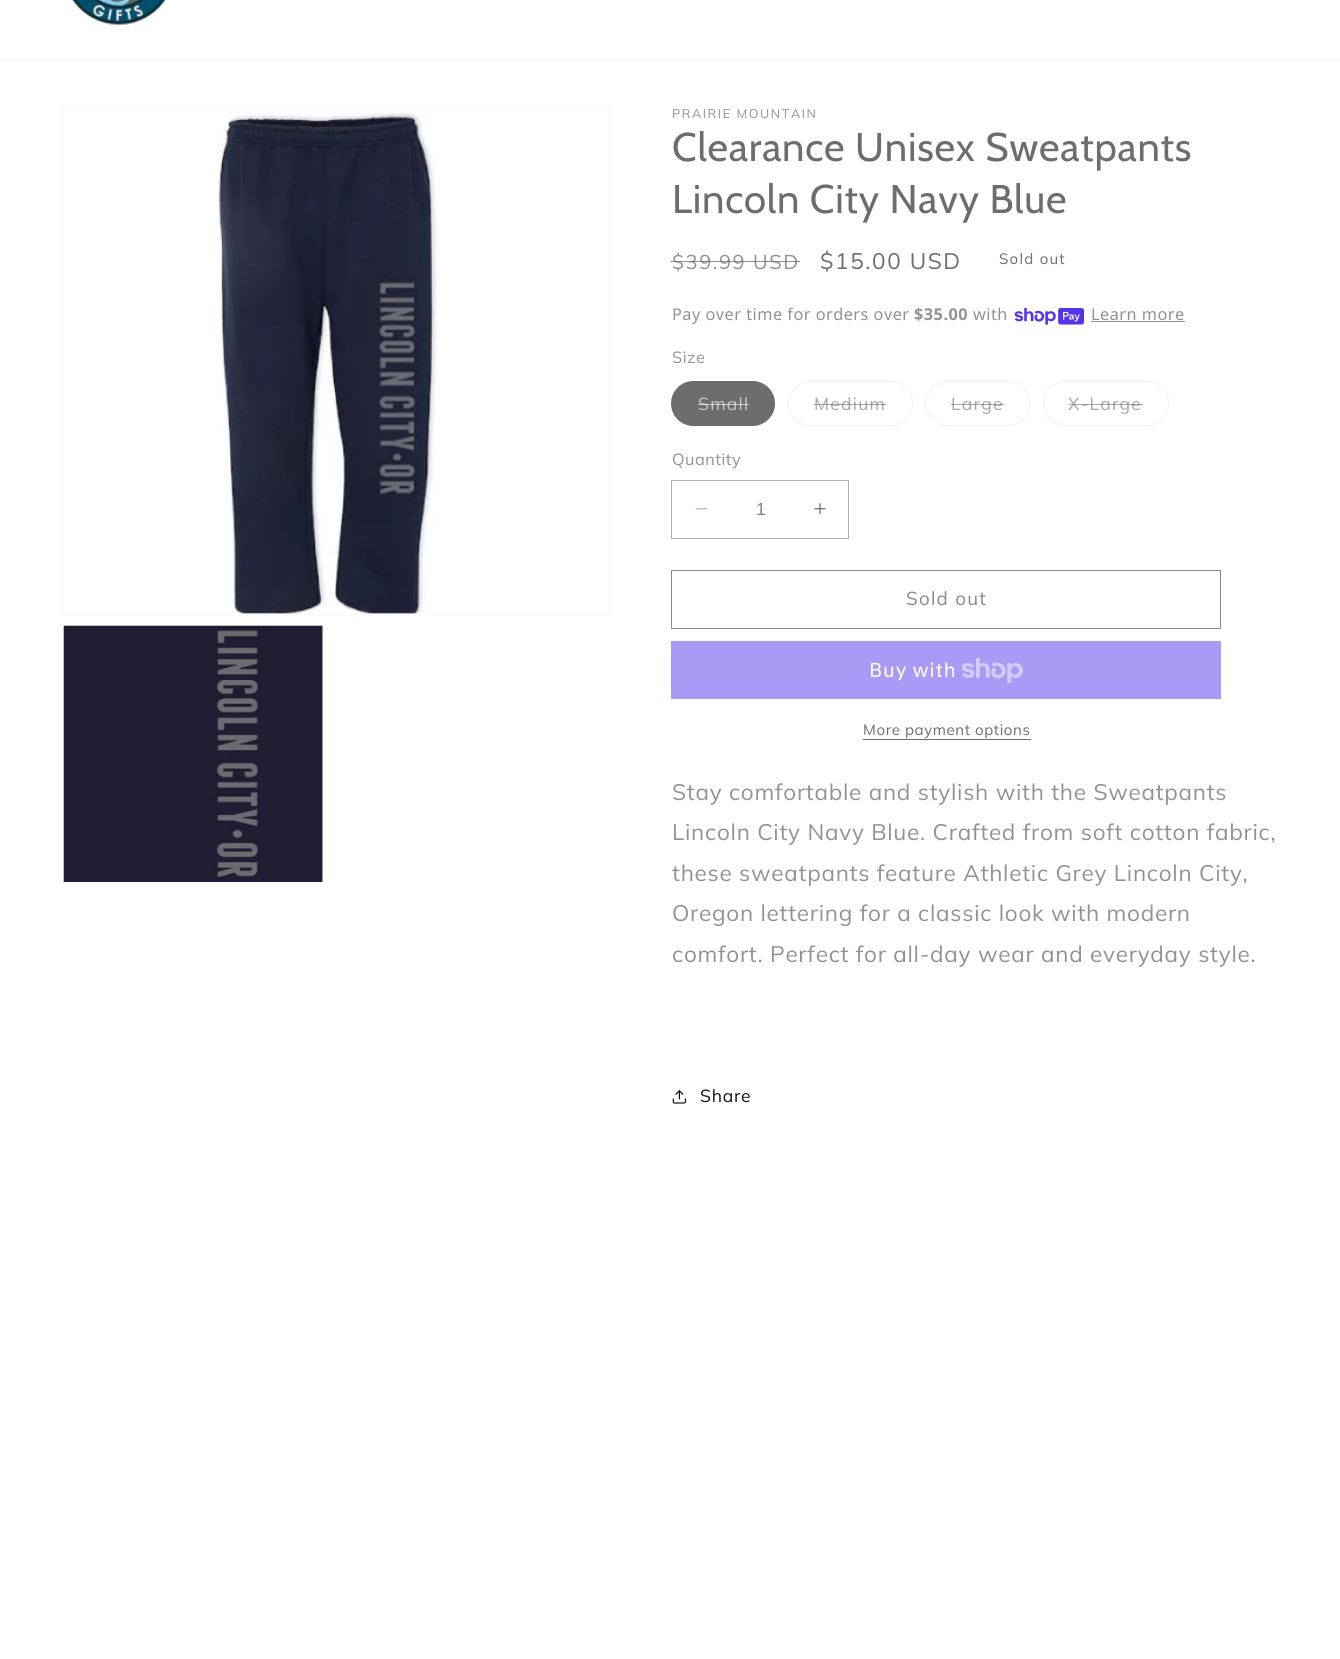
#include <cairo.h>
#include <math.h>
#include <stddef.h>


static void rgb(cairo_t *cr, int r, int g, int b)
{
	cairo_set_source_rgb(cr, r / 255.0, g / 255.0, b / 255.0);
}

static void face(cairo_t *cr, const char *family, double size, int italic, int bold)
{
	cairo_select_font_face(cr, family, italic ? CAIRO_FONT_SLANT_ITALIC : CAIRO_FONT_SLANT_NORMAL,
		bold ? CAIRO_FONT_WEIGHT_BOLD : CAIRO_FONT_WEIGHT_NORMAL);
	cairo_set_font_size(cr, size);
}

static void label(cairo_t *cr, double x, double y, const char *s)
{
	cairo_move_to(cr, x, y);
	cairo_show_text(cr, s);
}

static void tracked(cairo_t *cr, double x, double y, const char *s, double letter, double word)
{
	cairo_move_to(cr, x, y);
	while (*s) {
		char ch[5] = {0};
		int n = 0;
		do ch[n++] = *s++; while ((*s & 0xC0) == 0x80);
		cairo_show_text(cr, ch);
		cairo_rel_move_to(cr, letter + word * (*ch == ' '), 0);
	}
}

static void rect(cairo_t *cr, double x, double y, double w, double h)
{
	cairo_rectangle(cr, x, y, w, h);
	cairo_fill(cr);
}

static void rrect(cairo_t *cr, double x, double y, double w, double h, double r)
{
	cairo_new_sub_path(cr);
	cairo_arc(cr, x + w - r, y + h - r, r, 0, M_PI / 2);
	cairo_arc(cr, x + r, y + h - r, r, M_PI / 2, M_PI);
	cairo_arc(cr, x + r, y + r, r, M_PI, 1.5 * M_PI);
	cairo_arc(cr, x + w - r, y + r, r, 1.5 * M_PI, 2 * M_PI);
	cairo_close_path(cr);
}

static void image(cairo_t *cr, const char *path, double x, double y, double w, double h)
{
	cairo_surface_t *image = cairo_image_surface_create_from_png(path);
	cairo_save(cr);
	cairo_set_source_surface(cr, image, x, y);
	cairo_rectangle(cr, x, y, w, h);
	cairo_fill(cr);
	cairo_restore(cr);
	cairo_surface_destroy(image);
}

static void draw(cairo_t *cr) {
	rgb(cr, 255, 255, 255);
	cairo_paint(cr);
	rgb(cr, 243, 243, 243);
	rect(cr, 0, 60, 1340, 1);
	image(cr, "image0.png", 63, 0, 107, 26);
	cairo_rectangle(cr, 63.5, 106.5, 545, 508);
	rgb(cr, 248, 248, 248);
	cairo_set_line_width(cr, 1);
	cairo_stroke(cr);
	image(cr, "image1.png", 215, 112, 226, 502);
	cairo_rectangle(cr, 63.5, 625.5, 260, 258);
	cairo_stroke(cr);
	image(cr, "image2.png", 63, 625, 260, 257);
	face(cr, "Muli", 12.5, 0, 0);
	rgb(cr, 146, 146, 146);
	tracked(cr, 672, 118, "PRAIRIE MOUNTAIN", 1.6, 0);
	face(cr, "Cabin", 40, 0, 0);
	rgb(cr, 109, 109, 109);
	tracked(cr, 672, 161, "Clearance Unisex Sweatpants", 0.75, 0);
	tracked(cr, 672, 213, "Lincoln City Navy Blue", 0.75, 0);
	face(cr, "Muli", 20, 0, 0);
	rgb(cr, 146, 146, 146);
	tracked(cr, 672, 269, "$39.99 USD", 1.6, 0);
	cairo_set_source_rgba(cr, 0.427, 0.427, 0.427, 0.75);
	rect(cr, 671, 261, 129, 1);
	face(cr, "Muli", 22.5, 0, 0);
	rgb(cr, 109, 109, 109);
	tracked(cr, 820, 269, "$15.00 USD", 1.6, 0);
	face(cr, "Muli", 15, 0, 0);
	tracked(cr, 999, 264, "Sold out", 1.25, 0);
	face(cr, "Noto Sans", 16.25, 0, 0);
	rgb(cr, 146, 146, 146);
	tracked(cr, 672, 320, "Pay over time for orders over", 0.5, 0);
	face(cr, "Noto Sans", 16.25, 0, 1);
	tracked(cr, 914, 320, "$35.00", 0.5, 0);
	face(cr, "Noto Sans", 16.25, 0, 0);
	tracked(cr, 973, 320, "with", 0.5, 0);
	image(cr, "image3.png", 1014, 308, 70, 17);
	tracked(cr, 1091, 320, "Learn more", 0.5, 0);
	rect(cr, 1091, 321, 94, 1);
	face(cr, "Muli", 16.25, 0, 0);
	tracked(cr, 672, 363, "Size", 0.5, 0);
	rgb(cr, 109, 109, 109);
	rrect(cr, 671, 381, 104, 45, 22.5);
	cairo_fill(cr);
	rrect(cr, 671.5, 381.5, 103, 44, 22);
	cairo_set_source_rgba(cr, 0.427, 0.427, 0.427, 0.1);
	cairo_stroke(cr);
	face(cr, "Muli", 17.5, 0, 0);
	rgb(cr, 197, 197, 197);
	tracked(cr, 698, 410, "Small", 1.25, 0);
	cairo_set_source_rgba(cr, 1, 1, 1, 0.6);
	rect(cr, 698, 404, 51, 1);
	rrect(cr, 788.5, 381.5, 124, 44, 22);
	rgb(cr, 240, 240, 240);
	cairo_stroke(cr);
	rgb(cr, 167, 167, 167);
	tracked(cr, 814, 410, "Medium", 1.25, 0);
	cairo_set_source_rgba(cr, 0.427, 0.427, 0.427, 0.6);
	rect(cr, 814, 404, 72, 1);
	rrect(cr, 925.5, 381.5, 104, 44, 22);
	rgb(cr, 240, 240, 240);
	cairo_stroke(cr);
	rgb(cr, 167, 167, 167);
	tracked(cr, 951, 410, "Large", 1.25, 0);
	cairo_set_source_rgba(cr, 0.427, 0.427, 0.427, 0.6);
	rect(cr, 951, 404, 53, 1);
	rrect(cr, 1043.5, 381.5, 125, 44, 22);
	rgb(cr, 240, 240, 240);
	cairo_stroke(cr);
	rgb(cr, 167, 167, 167);
	tracked(cr, 1068, 410, "X-Large", 1.25, 0);
	cairo_set_source_rgba(cr, 0.427, 0.427, 0.427, 0.6);
	rect(cr, 1069, 404, 74, 1);
	face(cr, "Muli", 16.25, 0, 0);
	rgb(cr, 146, 146, 146);
	tracked(cr, 672, 465, "Quantity", 0.5, 0);
	image(cr, "image4.png", 695, 508, 12, 2);
	image(cr, "image5.png", 814, 503, 12, 12);
	cairo_rectangle(cr, 671.5, 480.5, 177, 58);
	rgb(cr, 175, 175, 175);
	cairo_stroke(cr);
	face(cr, "Liberation Sans", 17.5, 0, 0);
	rgb(cr, 131, 131, 131);
	label(cr, 756, 515, "1");
	cairo_rectangle(cr, 671.5, 570.5, 549, 58);
	rgb(cr, 137, 137, 137);
	cairo_stroke(cr);
	face(cr, "Muli", 18.75, 0, 0);
	tracked(cr, 906, 605, "Sold out", 1.25, 0);
	rgb(cr, 170, 153, 245);
	rect(cr, 671, 641, 550, 58);
	face(cr, "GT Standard", 20, 0, 0);
	rgb(cr, 255, 255, 255);
	tracked(cr, 869, 677, "Buy with", 0.75, 0);
	image(cr, "image6.png", 962, 658, 61, 25);
	face(cr, "Muli", 15, 0, 0);
	rgb(cr, 109, 109, 109);
	tracked(cr, 863, 735, "More payment options", 0.6, 0);
	rect(cr, 863, 739, 168, 1);
	face(cr, "Muli", 22.5, 0, 0);
	rgb(cr, 146, 146, 146);
	tracked(cr, 672, 800, "Stay comfortable and stylish with the Sweatpants", 0.75, 0);
	tracked(cr, 672, 840, "Lincoln City Navy Blue. Crafted from soft cotton fabric,", 0.75, 0);
	tracked(cr, 672, 881, "these sweatpants feature Athletic Grey Lincoln City,", 0.75, 0);
	tracked(cr, 672, 921, "Oregon lettering for a classic look with modern", 0.75, 0);
	tracked(cr, 672, 962, "comfort. Perfect for all-day wear and everyday style.", 0.75, 0);
	image(cr, "image7.png", 672, 1090, 15, 14);
	face(cr, "Muli", 17.5, 0, 0);
	rgb(cr, 18, 18, 18);
	tracked(cr, 700, 1102, "Share", 0.75, 0);
}

int main(void) {
	cairo_surface_t *surface = cairo_image_surface_create(CAIRO_FORMAT_RGB24, 1340, 1659);
	cairo_t *cr = cairo_create(surface);
	cairo_font_options_t *options = cairo_font_options_create();
	cairo_font_options_set_hint_metrics(options, CAIRO_HINT_METRICS_OFF);
	cairo_font_options_set_hint_style(options, CAIRO_HINT_STYLE_NONE);
	cairo_set_font_options(cr, options);
	cairo_set_miter_limit(cr, 4);
	draw(cr);
	cairo_surface_write_to_png(surface, "render.png");
	cairo_font_options_destroy(options);
	cairo_destroy(cr);
	cairo_surface_destroy(surface);
	return 0;
}
